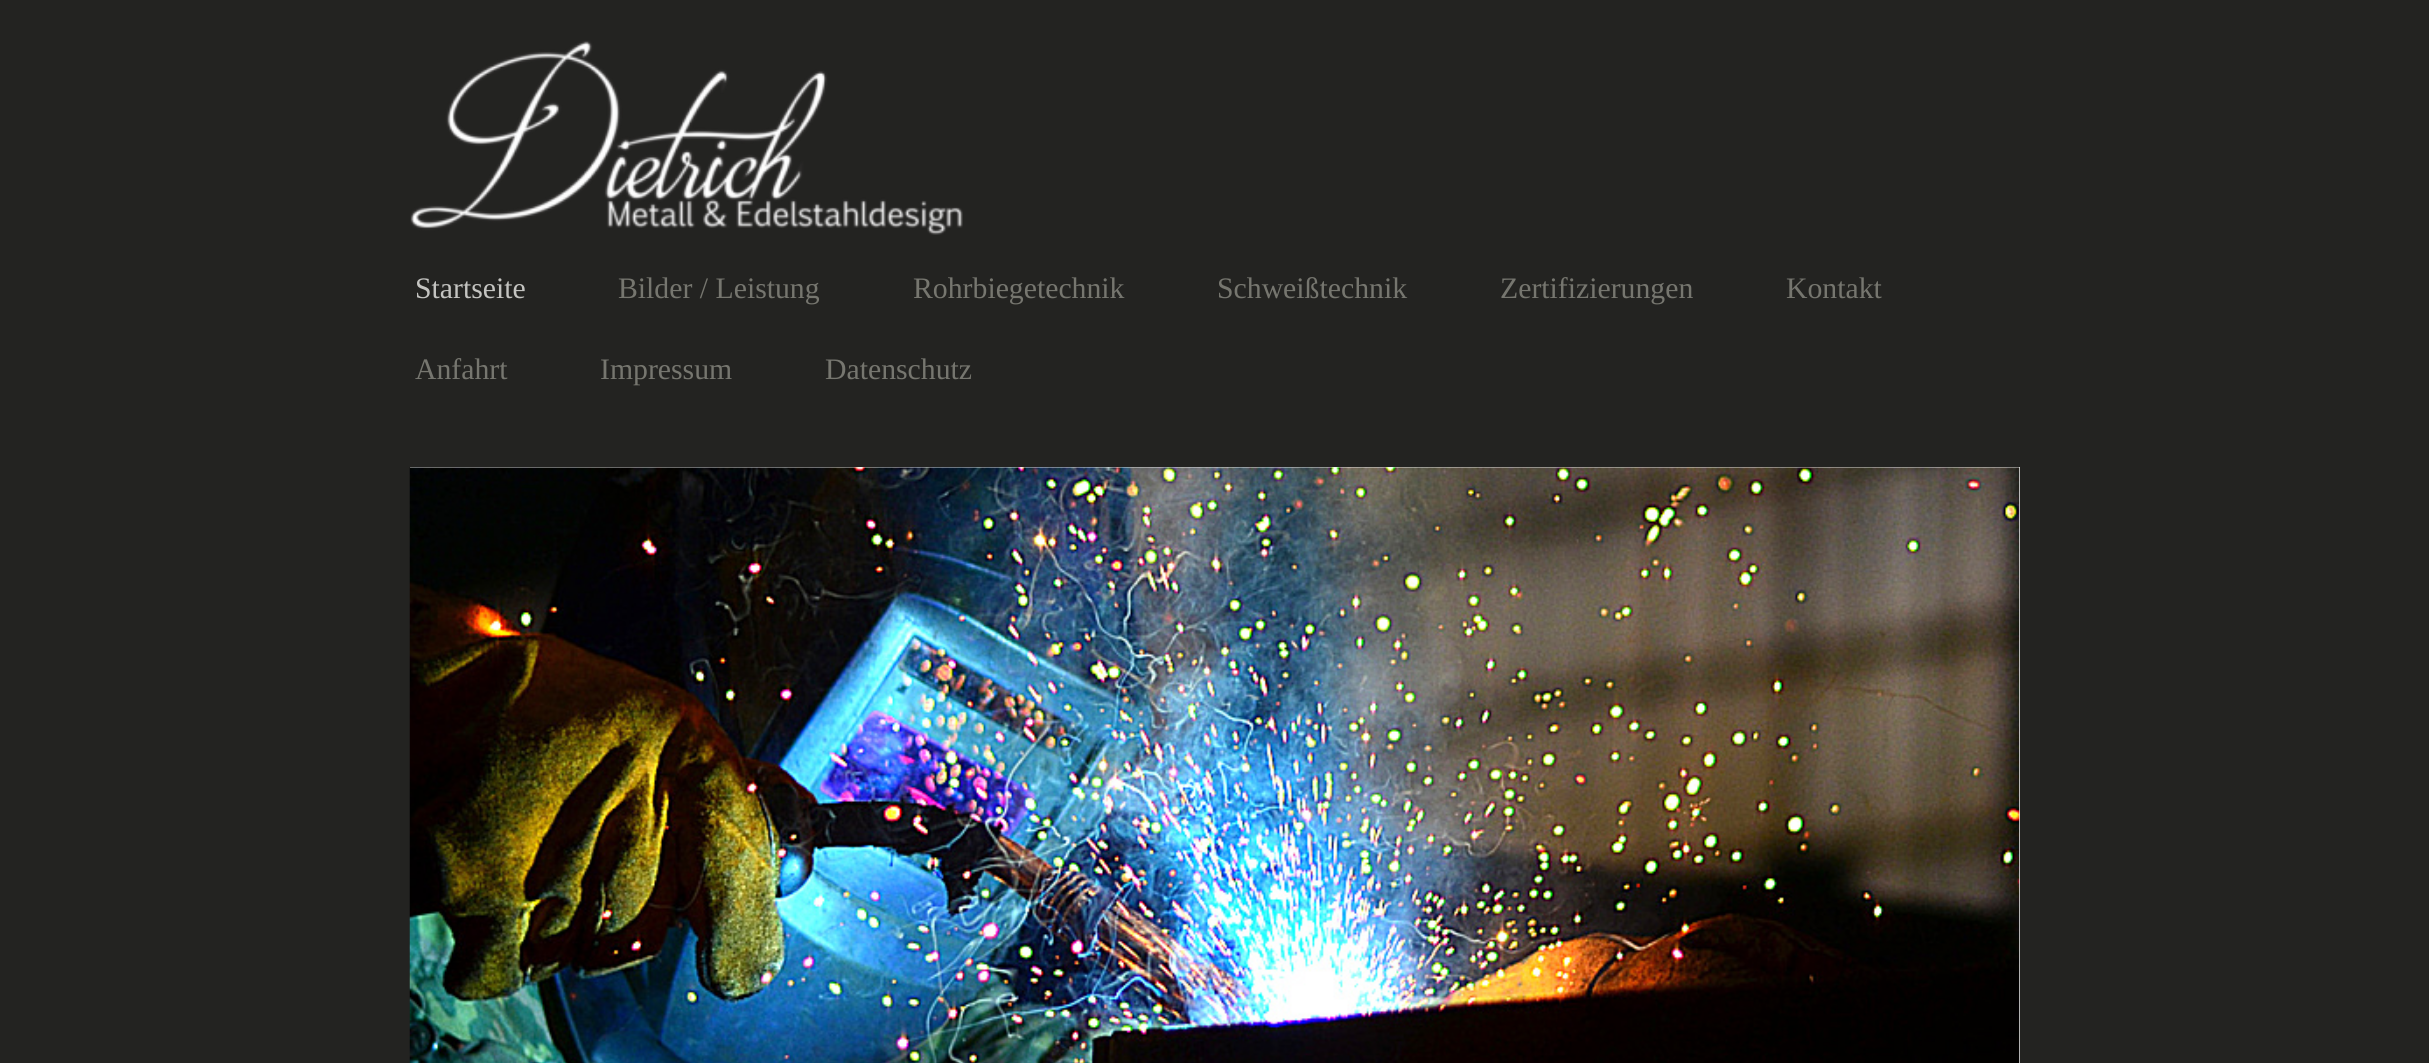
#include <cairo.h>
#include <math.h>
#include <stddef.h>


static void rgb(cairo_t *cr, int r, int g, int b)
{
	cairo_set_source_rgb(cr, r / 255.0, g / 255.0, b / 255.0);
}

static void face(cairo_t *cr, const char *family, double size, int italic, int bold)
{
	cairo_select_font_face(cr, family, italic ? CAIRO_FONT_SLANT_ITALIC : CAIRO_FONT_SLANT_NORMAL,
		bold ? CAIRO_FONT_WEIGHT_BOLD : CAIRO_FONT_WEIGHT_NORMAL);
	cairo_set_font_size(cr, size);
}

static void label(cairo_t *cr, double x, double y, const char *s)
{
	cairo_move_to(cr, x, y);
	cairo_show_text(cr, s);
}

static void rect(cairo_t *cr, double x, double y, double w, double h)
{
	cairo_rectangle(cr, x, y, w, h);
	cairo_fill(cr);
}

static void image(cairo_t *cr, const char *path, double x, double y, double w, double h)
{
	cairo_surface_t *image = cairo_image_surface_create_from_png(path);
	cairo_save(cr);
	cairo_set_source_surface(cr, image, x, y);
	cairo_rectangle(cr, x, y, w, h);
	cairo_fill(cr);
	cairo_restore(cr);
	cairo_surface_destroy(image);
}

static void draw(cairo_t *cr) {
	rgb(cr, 35, 35, 33);
	cairo_paint(cr);
	image(cr, "image0.png", 410, 40, 553, 195);
	face(cr, "Liberation Serif", 29.75, 0, 0);
	rgb(cr, 196, 196, 193);
	label(cr, 415, 298, "Startseite");
	rgb(cr, 118, 118, 111);
	label(cr, 618, 298, "Bilder / Leistung");
	label(cr, 913, 298, "Rohrbiegetechnik");
	label(cr, 1217, 298, "Schweißtechnik");
	label(cr, 1500, 298, "Zertifizierungen");
	label(cr, 1786, 298, "Kontakt");
	label(cr, 415, 379, "Anfahrt");
	label(cr, 600, 379, "Impressum");
	label(cr, 825, 379, "Datenschutz");
	rgb(cr, 238, 238, 238);
	rect(cr, 410, 467, 1610, 596);
	image(cr, "image1.png", 409, 467, 1611, 596);
}

int main(void) {
	cairo_surface_t *surface = cairo_image_surface_create(CAIRO_FORMAT_RGB24, 2429, 1063);
	cairo_t *cr = cairo_create(surface);
	cairo_font_options_t *options = cairo_font_options_create();
	cairo_font_options_set_hint_metrics(options, CAIRO_HINT_METRICS_OFF);
	cairo_font_options_set_hint_style(options, CAIRO_HINT_STYLE_NONE);
	cairo_set_font_options(cr, options);
	cairo_set_miter_limit(cr, 4);
	draw(cr);
	cairo_surface_write_to_png(surface, "render.png");
	cairo_font_options_destroy(options);
	cairo_destroy(cr);
	cairo_surface_destroy(surface);
	return 0;
}
